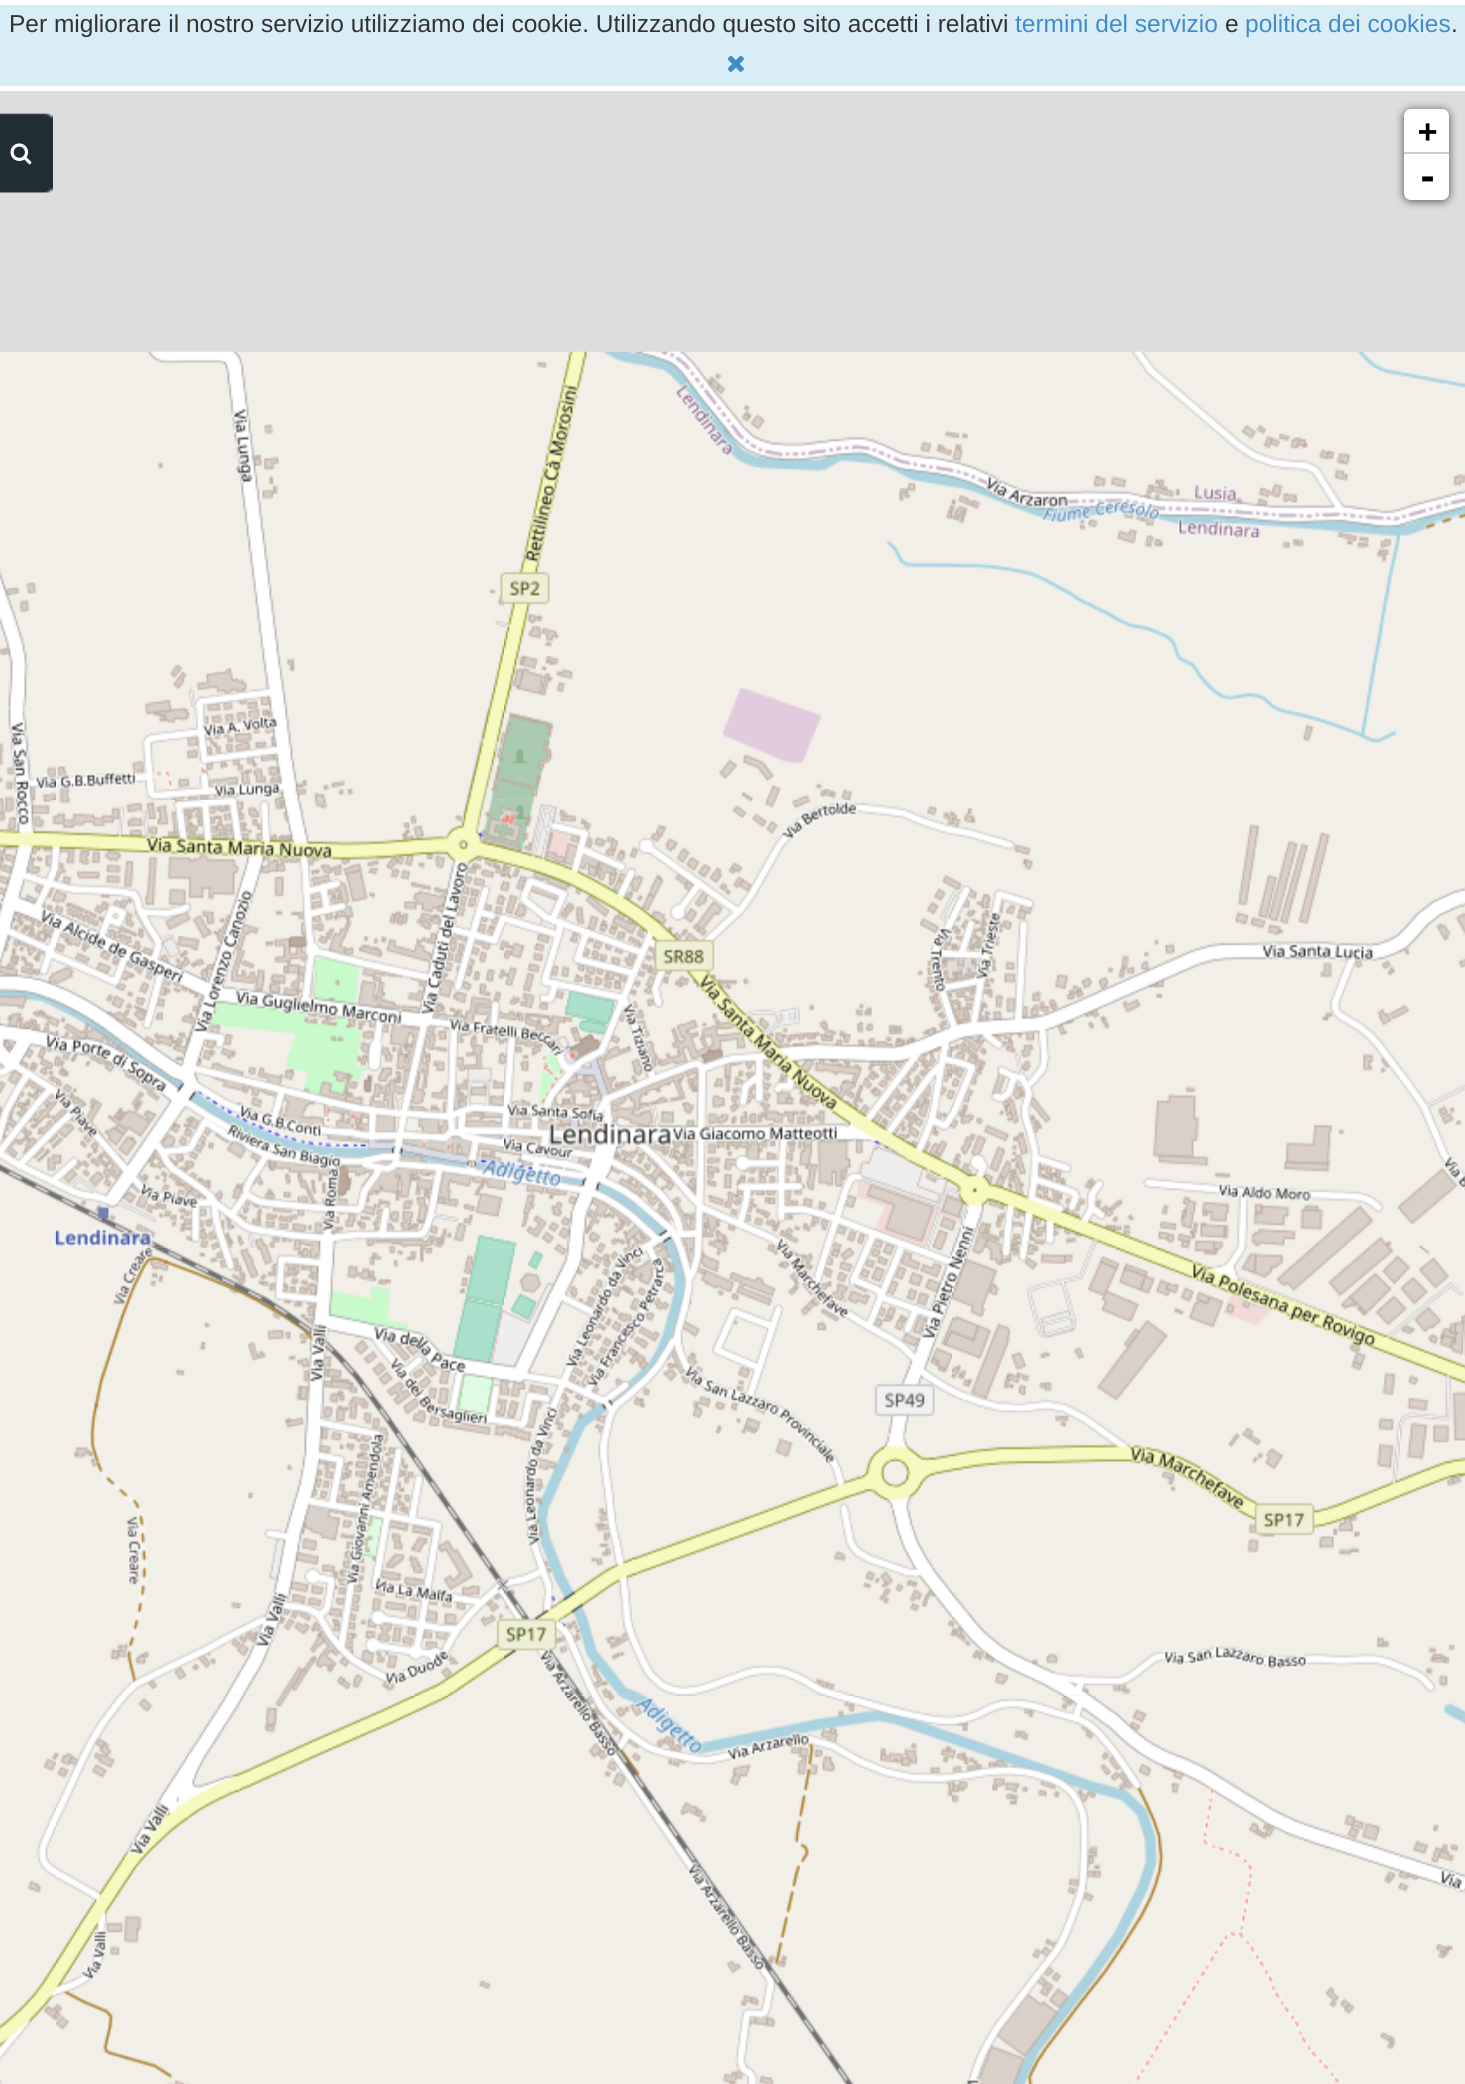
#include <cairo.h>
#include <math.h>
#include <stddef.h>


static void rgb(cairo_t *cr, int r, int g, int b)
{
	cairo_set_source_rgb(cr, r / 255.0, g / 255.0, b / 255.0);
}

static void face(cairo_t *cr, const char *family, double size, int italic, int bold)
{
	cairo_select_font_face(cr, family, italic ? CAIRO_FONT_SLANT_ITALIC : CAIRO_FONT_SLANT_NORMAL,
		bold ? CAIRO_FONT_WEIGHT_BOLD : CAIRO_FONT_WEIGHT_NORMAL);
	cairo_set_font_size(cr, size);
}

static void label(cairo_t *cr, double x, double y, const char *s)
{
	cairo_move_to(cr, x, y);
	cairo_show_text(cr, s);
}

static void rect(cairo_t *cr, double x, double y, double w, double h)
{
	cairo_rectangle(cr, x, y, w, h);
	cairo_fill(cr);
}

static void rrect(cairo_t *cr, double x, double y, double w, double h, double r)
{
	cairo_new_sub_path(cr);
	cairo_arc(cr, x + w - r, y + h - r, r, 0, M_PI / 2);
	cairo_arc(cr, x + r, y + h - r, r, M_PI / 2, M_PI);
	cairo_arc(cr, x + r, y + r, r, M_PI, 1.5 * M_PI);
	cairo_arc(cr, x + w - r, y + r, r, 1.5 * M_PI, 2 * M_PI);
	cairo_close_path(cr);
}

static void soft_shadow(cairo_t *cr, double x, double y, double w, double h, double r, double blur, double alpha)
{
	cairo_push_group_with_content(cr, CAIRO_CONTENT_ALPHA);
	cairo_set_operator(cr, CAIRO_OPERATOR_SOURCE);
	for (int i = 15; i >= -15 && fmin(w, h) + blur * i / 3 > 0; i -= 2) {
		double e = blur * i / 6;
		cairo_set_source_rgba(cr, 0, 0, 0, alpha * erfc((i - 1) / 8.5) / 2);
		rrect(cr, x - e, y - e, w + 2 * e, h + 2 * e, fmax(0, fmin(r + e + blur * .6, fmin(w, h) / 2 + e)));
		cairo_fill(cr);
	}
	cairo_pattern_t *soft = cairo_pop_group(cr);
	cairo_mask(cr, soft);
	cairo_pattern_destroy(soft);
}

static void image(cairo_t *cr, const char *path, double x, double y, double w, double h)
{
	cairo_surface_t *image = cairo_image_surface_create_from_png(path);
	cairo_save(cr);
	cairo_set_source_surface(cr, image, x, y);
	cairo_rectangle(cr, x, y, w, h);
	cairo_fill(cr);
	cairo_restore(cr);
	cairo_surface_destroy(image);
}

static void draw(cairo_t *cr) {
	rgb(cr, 255, 255, 255);
	cairo_paint(cr);
	rgb(cr, 217, 237, 247);
	rect(cr, 0, 5, 1465, 81);
	face(cr, "Liberation Sans", 24.5, 0, 0);
	rgb(cr, 51, 51, 51);
	label(cr, 9, 32, "Per migliorare il nostro servizio utilizziamo dei cookie. Utilizzando questo sito accetti i relativi");
	rgb(cr, 66, 139, 202);
	label(cr, 1015, 32, "termini del servizio");
	rgb(cr, 51, 51, 51);
	label(cr, 1225, 32, "e");
	rgb(cr, 66, 139, 202);
	label(cr, 1245, 32, "politica dei cookies");
	rgb(cr, 51, 51, 51);
	label(cr, 1451, 32, ".");
	image(cr, "image0.png", 727, 55, 17, 17);
	rgb(cr, 221, 221, 221);
	rect(cr, 0, 91, 1465, 1605);
	image(cr, "image1.png", 0, 113, 53, 80);
	image(cr, "image2.png", 10, 143, 22, 22);
	rgb(cr, 0, 0, 0);
	soft_shadow(cr, 1404, 110, 45, 91, 7, 4.5, 0.65);
	rgb(cr, 255, 255, 255);
	cairo_new_path(cr);
	cairo_move_to(cr, 1411, 109);
	cairo_line_to(cr, 1442, 109);
	cairo_curve_to(cr, 1446, 109, 1449, 112, 1449, 116);
	cairo_line_to(cr, 1449, 154);
	cairo_line_to(cr, 1404, 154);
	cairo_line_to(cr, 1404, 116);
	cairo_curve_to(cr, 1404, 112, 1407, 109, 1411, 109);
	cairo_close_path(cr);
	cairo_fill(cr);
	rgb(cr, 204, 204, 204);
	rect(cr, 1404, 152, 45, 2);
	face(cr, "DejaVu Sans Mono", 32, 0, 1);
	rgb(cr, 0, 0, 0);
	label(cr, 1418, 142, "+");
	rgb(cr, 255, 255, 255);
	cairo_new_path(cr);
	cairo_move_to(cr, 1404, 154);
	cairo_line_to(cr, 1449, 154);
	cairo_line_to(cr, 1449, 193);
	cairo_curve_to(cr, 1449, 197, 1446, 200, 1442, 200);
	cairo_line_to(cr, 1411, 200);
	cairo_curve_to(cr, 1407, 200, 1404, 197, 1404, 193);
	cairo_close_path(cr);
	cairo_fill(cr);
	face(cr, "DejaVu Sans Mono", 35, 0, 1);
	rgb(cr, 0, 0, 0);
	label(cr, 1417, 189, "-");
	image(cr, "image3.png", 0, 352, 56, 448);
	image(cr, "image9.png", 56, 799, 448, 449);
	image(cr, "image4.png", 56, 351, 448, 449);
	image(cr, "image10.png", 504, 799, 448, 449);
	image(cr, "image5.png", 504, 351, 448, 449);
	image(cr, "image11.png", 952, 799, 448, 449);
	image(cr, "image6.png", 952, 351, 448, 449);
	image(cr, "image7.png", 1400, 352, 65, 448);
	image(cr, "image8.png", 0, 800, 56, 448);
	image(cr, "image12.png", 1400, 800, 65, 448);
	rgb(cr, 242, 239, 233);
	rect(cr, 0, 1248, 56, 448);
	image(cr, "image13.png", 56, 1247, 448, 449);
	image(cr, "image14.png", 504, 1247, 448, 449);
	image(cr, "image15.png", 952, 1247, 448, 449);
	image(cr, "image16.png", 1400, 1248, 65, 448);
	image(cr, "image17.png", 0, 1696, 56, 388);
	image(cr, "image18.png", 56, 1696, 448, 388);
	image(cr, "image19.png", 504, 1696, 448, 388);
	image(cr, "image20.png", 952, 1696, 448, 388);
	image(cr, "image21.png", 1400, 1696, 65, 388);
}

int main(void) {
	cairo_surface_t *surface = cairo_image_surface_create(CAIRO_FORMAT_RGB24, 1465, 2084);
	cairo_t *cr = cairo_create(surface);
	cairo_font_options_t *options = cairo_font_options_create();
	cairo_font_options_set_hint_metrics(options, CAIRO_HINT_METRICS_OFF);
	cairo_font_options_set_hint_style(options, CAIRO_HINT_STYLE_NONE);
	cairo_set_font_options(cr, options);
	cairo_set_miter_limit(cr, 4);
	draw(cr);
	cairo_surface_write_to_png(surface, "render.png");
	cairo_font_options_destroy(options);
	cairo_destroy(cr);
	cairo_surface_destroy(surface);
	return 0;
}
